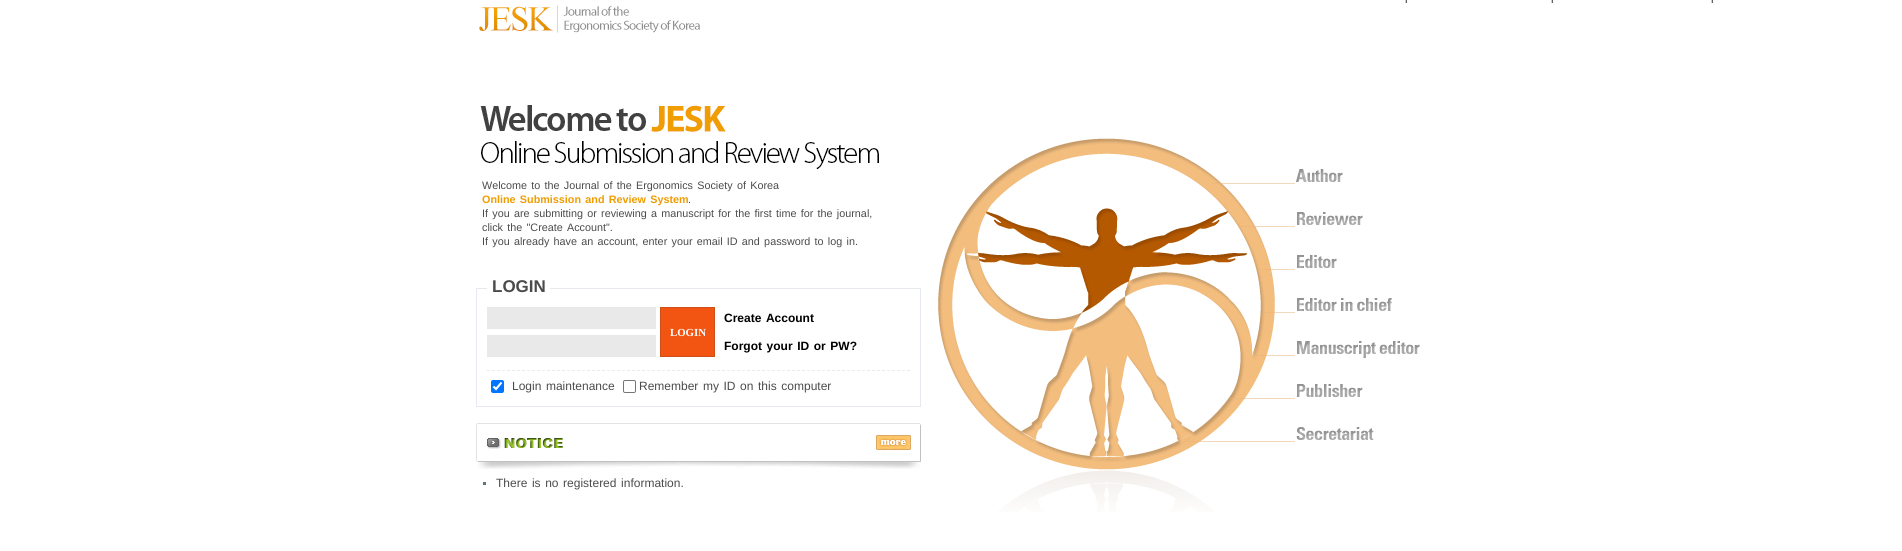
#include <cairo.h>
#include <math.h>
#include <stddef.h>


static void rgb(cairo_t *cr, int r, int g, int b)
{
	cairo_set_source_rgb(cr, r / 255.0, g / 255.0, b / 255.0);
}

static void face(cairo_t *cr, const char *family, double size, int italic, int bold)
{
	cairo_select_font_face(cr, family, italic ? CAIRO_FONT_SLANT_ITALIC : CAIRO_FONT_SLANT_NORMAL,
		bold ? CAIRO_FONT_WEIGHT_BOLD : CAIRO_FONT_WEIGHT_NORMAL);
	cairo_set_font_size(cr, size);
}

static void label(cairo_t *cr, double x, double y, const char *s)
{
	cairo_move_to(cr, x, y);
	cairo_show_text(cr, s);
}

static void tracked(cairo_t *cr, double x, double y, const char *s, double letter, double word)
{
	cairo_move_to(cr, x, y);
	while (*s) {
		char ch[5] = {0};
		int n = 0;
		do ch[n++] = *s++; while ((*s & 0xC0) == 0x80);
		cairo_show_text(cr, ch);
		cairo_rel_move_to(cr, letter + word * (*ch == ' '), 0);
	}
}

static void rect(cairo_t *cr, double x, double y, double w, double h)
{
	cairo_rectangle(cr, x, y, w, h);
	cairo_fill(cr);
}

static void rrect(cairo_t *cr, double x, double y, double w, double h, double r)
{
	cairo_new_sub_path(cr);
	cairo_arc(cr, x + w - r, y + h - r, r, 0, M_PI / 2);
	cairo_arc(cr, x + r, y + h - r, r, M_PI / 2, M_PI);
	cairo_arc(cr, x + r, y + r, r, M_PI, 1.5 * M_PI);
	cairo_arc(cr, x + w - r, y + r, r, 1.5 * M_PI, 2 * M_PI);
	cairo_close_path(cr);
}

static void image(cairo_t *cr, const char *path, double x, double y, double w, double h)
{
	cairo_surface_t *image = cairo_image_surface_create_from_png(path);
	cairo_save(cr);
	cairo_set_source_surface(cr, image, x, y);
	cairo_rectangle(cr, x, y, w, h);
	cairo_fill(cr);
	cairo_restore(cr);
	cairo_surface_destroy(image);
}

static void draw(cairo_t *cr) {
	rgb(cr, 255, 255, 255);
	cairo_paint(cr);
	image(cr, "image0.png", 480, 103, 400, 67);
	image(cr, "image1.png", 1405, 0, 2, 3);
	image(cr, "image1.png", 1551, 0, 2, 3);
	image(cr, "image1.png", 1711, 0, 2, 3);
	image(cr, "image2.png", 479, 5, 221, 28);
	face(cr, "Liberation Sans", 10.8, 0, 0);
	rgb(cr, 75, 75, 75);
	tracked(cr, 482, 189, "Welcome to the Journal of the Ergonomics Society of Korea", 0, 1.25);
	face(cr, "Liberation Sans", 10.8, 0, 1);
	rgb(cr, 239, 156, 0);
	tracked(cr, 482, 203, "Online Submission and Review System", 0, 1.25);
	face(cr, "Liberation Sans", 10.8, 0, 0);
	rgb(cr, 75, 75, 75);
	label(cr, 688, 203, ".");
	tracked(cr, 482, 217, "If you are submitting or reviewing a manuscript for the first time for the journal,", 0, 1.25);
	tracked(cr, 482, 231, "click the \"Create Account\".", 0, 1.25);
	tracked(cr, 482, 245, "If you already have an account, enter your email ID and password to log in.", 0, 1.25);
	image(cr, "image3.png", 938, 138, 482, 374);
	cairo_rectangle(cr, 476.5, 288.5, 444, 118);
	rgb(cr, 230, 233, 237);
	cairo_set_line_width(cr, 1);
	cairo_stroke(cr);
	rgb(cr, 255, 255, 255);
	rect(cr, 487, 288, 63, 1);
	face(cr, "Liberation Sans", 17, 0, 1);
	rgb(cr, 75, 75, 75);
	label(cr, 492, 292, "LOGIN");
	rgb(cr, 233, 233, 233);
	rect(cr, 487, 307, 169, 22);
	rgb(cr, 242, 85, 17);
	cairo_rectangle(cr, 660.5, 307.5, 54, 49);
	cairo_fill_preserve(cr);
	rgb(cr, 206, 77, 24);
	cairo_stroke(cr);
	face(cr, "Liberation Serif", 10.8, 0, 1);
	rgb(cr, 255, 255, 255);
	label(cr, 670, 336, "LOGIN");
	face(cr, "Liberation Sans", 12, 0, 1);
	rgb(cr, 0, 0, 0);
	tracked(cr, 724, 322, "Create Account", 0, 1.25);
	tracked(cr, 724, 350, "Forgot your ID or PW?", 0, 1.25);
	rgb(cr, 233, 233, 233);
	rect(cr, 487, 335, 169, 22);
	cairo_new_path(cr);
	cairo_move_to(cr, 487, 370.5);
	cairo_line_to(cr, 910, 370.5);
	rgb(cr, 235, 235, 235);
	cairo_set_dash(cr, (double[]){3, 2}, 2, 0);
	cairo_stroke(cr);
	rgb(cr, 0, 117, 255);
	rrect(cr, 491, 380, 13, 13, 2);
	cairo_fill(cr);
	cairo_new_path(cr);
	cairo_move_to(cr, 493.5, 386.5);
	cairo_line_to(cr, 496, 389);
	cairo_line_to(cr, 501.5, 382.5);
	rgb(cr, 255, 255, 255);
	cairo_set_line_width(cr, 2.1);
	cairo_set_dash(cr, NULL, 0, 0);
	cairo_stroke(cr);
	face(cr, "Liberation Sans", 12, 0, 0);
	rgb(cr, 75, 75, 75);
	tracked(cr, 512, 390, "Login maintenance", 0, 1.25);
	rrect(cr, 623.5, 380.5, 12, 12, 1.5);
	rgb(cr, 118, 118, 118);
	cairo_set_line_width(cr, 1);
	cairo_stroke(cr);
	rgb(cr, 75, 75, 75);
	tracked(cr, 639, 390, "Remember my ID on this computer", 0, 1.25);
	image(cr, "image4.png", 476, 423, 445, 46);
	rgb(cr, 94, 116, 126);
	rect(cr, 483, 482, 3, 3);
	rgb(cr, 75, 75, 75);
	tracked(cr, 496, 487, "There is no registered information.", 0, 1.25);
}

int main(void) {
	cairo_surface_t *surface = cairo_image_surface_create(CAIRO_FORMAT_RGB24, 1902, 551);
	cairo_t *cr = cairo_create(surface);
	cairo_font_options_t *options = cairo_font_options_create();
	cairo_font_options_set_hint_metrics(options, CAIRO_HINT_METRICS_OFF);
	cairo_font_options_set_hint_style(options, CAIRO_HINT_STYLE_NONE);
	cairo_set_font_options(cr, options);
	cairo_set_miter_limit(cr, 4);
	draw(cr);
	cairo_surface_write_to_png(surface, "render.png");
	cairo_font_options_destroy(options);
	cairo_destroy(cr);
	cairo_surface_destroy(surface);
	return 0;
}
